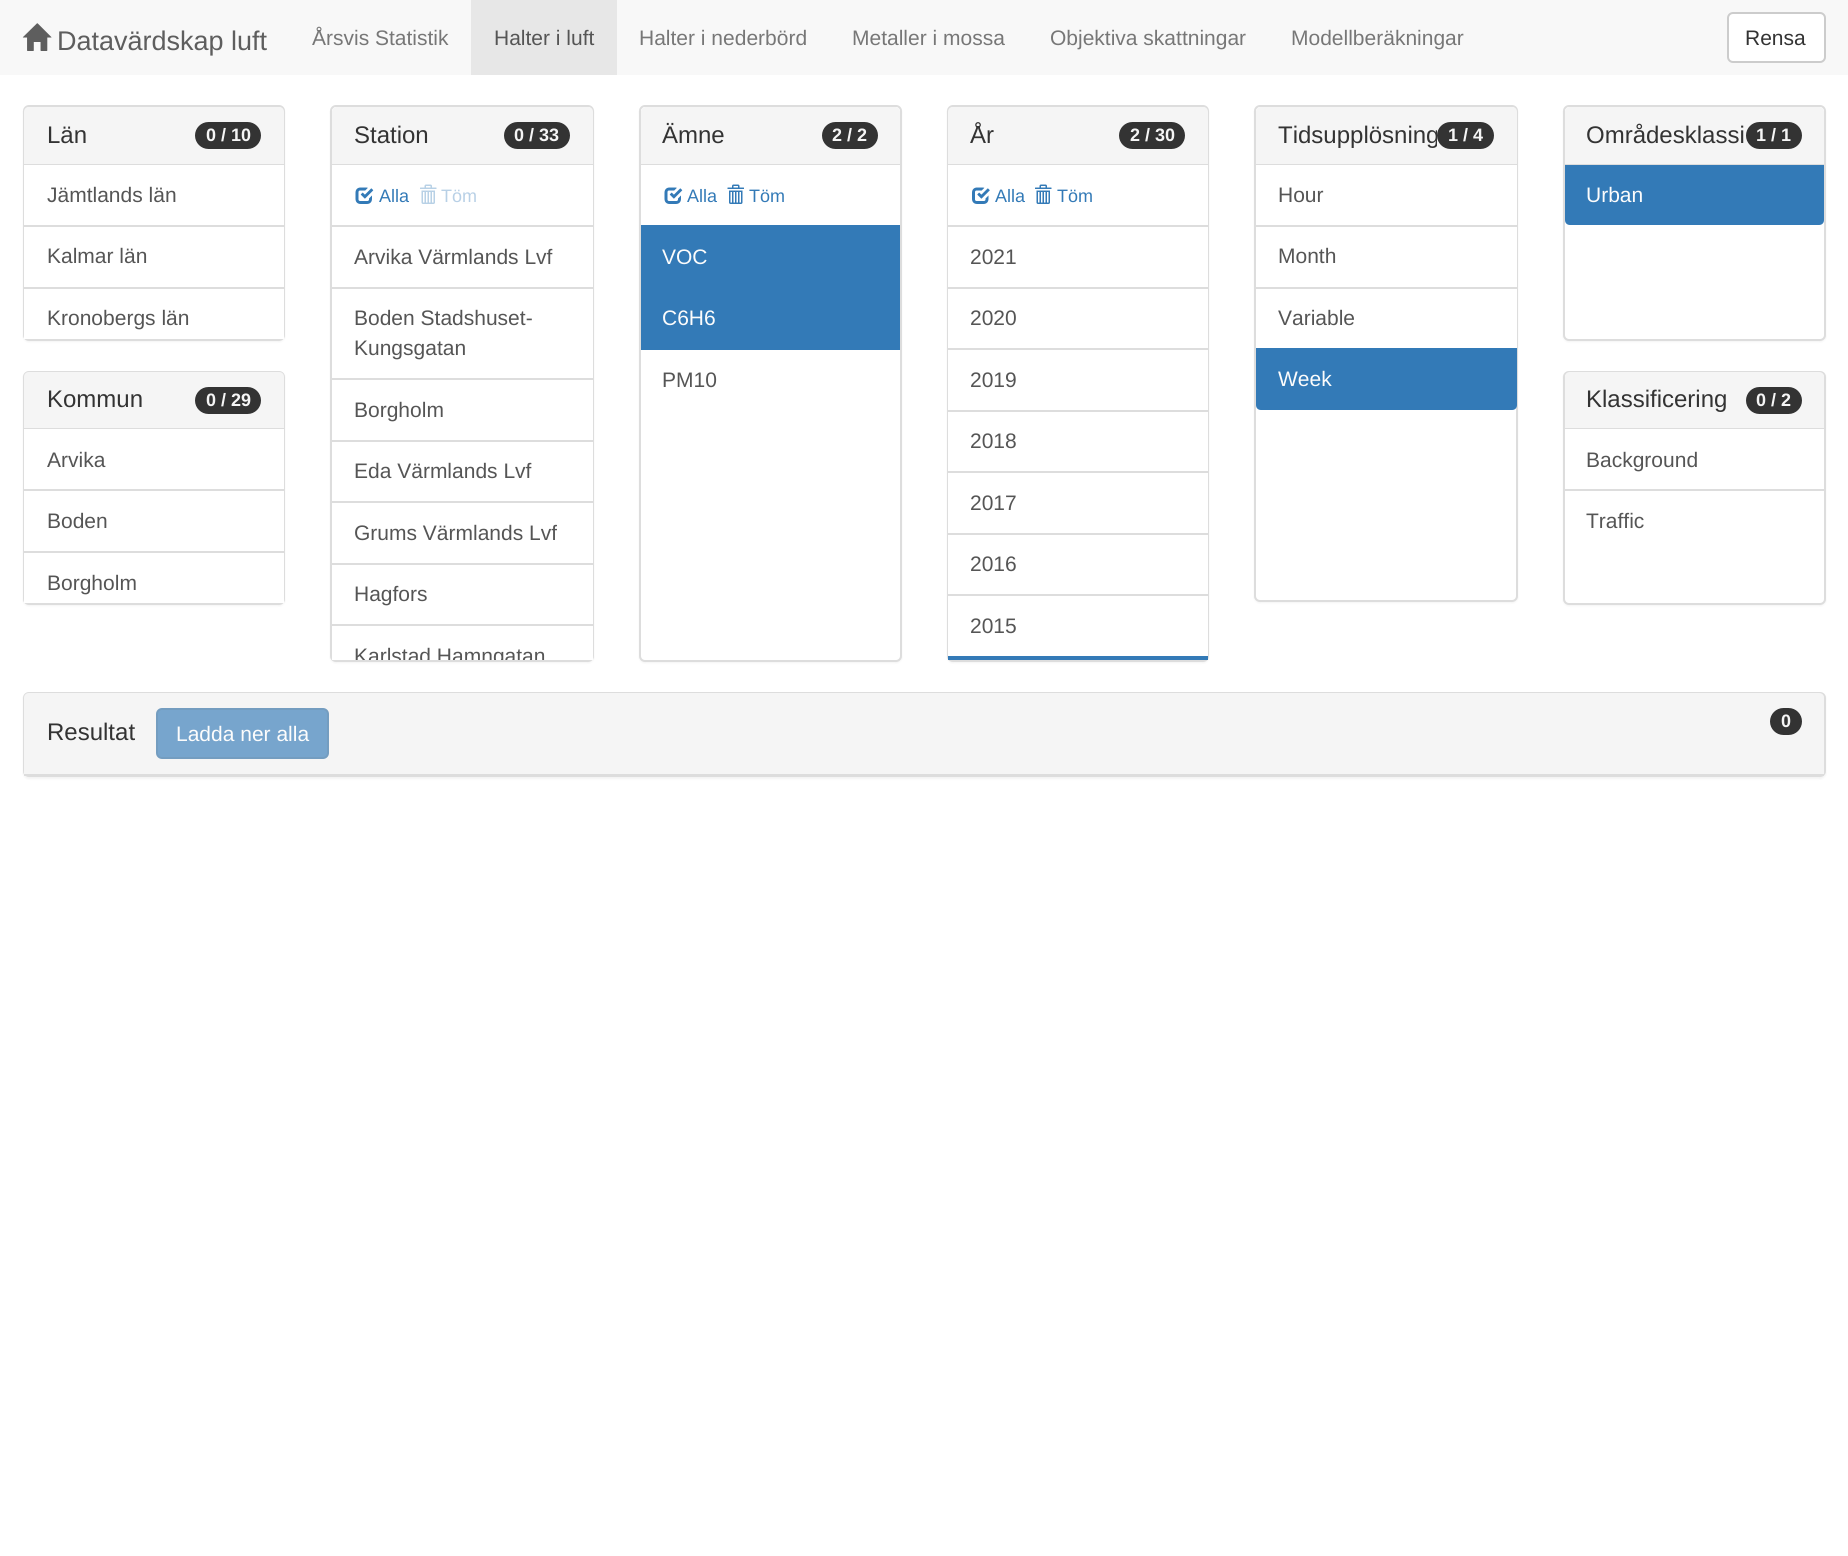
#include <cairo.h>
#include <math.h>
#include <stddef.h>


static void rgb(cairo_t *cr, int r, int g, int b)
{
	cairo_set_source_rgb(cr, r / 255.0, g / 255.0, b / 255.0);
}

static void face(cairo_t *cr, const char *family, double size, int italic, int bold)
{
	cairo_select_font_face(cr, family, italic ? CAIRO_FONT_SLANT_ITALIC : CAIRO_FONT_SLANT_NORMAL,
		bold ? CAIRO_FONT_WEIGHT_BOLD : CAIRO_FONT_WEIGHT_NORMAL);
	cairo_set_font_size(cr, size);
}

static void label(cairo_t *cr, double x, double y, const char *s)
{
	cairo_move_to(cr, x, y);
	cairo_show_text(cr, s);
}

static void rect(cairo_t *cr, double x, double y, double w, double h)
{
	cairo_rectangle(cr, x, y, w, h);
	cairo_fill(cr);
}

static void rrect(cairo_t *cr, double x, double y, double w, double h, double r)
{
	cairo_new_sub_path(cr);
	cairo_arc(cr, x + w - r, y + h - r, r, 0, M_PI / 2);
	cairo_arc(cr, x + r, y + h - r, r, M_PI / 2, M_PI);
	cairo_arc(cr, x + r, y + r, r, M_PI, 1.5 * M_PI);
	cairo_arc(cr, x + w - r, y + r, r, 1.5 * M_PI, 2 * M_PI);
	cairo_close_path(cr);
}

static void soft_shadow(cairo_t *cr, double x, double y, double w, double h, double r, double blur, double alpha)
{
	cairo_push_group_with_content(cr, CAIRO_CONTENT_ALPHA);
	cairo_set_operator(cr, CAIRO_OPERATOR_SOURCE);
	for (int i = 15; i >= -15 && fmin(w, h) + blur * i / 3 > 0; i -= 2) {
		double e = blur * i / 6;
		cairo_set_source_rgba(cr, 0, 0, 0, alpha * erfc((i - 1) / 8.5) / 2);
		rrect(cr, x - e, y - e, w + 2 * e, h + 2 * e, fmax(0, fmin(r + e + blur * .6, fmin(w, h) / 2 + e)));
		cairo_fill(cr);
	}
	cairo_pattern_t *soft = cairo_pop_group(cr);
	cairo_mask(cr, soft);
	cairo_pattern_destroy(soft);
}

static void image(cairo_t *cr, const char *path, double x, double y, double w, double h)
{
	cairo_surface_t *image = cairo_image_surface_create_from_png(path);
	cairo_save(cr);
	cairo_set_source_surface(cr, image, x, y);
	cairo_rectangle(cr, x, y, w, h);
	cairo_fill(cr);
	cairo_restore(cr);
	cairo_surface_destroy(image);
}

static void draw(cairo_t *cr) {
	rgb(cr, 255, 255, 255);
	cairo_paint(cr);
	rgb(cr, 248, 248, 248);
	rect(cr, 0, 0, 1848, 75);
	image(cr, "image0.png", 22, 23, 30, 28);
	face(cr, "Liberation Sans", 27, 0, 0);
	rgb(cr, 94, 94, 94);
	label(cr, 57, 50, "Datavärdskap luft");
	face(cr, "Liberation Sans", 21, 0, 0);
	rgb(cr, 119, 119, 119);
	label(cr, 312, 45, "Årsvis Statistik");
	rgb(cr, 231, 231, 231);
	rect(cr, 471, 0, 146, 75);
	rgb(cr, 85, 85, 85);
	label(cr, 494, 45, "Halter i luft");
	rgb(cr, 119, 119, 119);
	label(cr, 639, 45, "Halter i nederbörd");
	label(cr, 852, 45, "Metaller i mossa");
	label(cr, 1050, 45, "Objektiva skattningar");
	label(cr, 1291, 45, "Modellberäkningar");
	rgb(cr, 255, 255, 255);
	rrect(cr, 1728, 13, 97, 49, 5);
	cairo_fill_preserve(cr);
	rgb(cr, 204, 204, 204);
	cairo_stroke(cr);
	rgb(cr, 51, 51, 51);
	label(cr, 1745, 45, "Rensa");
	rgb(cr, 0, 0, 0);
	soft_shadow(cr, 23, 107, 262, 235, 6, 1, 0.05);
	rrect(cr, 24, 106, 260, 234, 5);
	rgb(cr, 221, 221, 221);
	cairo_stroke(cr);
	rgb(cr, 245, 245, 245);
	cairo_new_path(cr);
	cairo_move_to(cr, 29, 107);
	cairo_line_to(cr, 279, 107);
	cairo_curve_to(cr, 282, 107, 284, 109, 284, 112);
	cairo_line_to(cr, 284, 165);
	cairo_line_to(cr, 24, 165);
	cairo_line_to(cr, 24, 112);
	cairo_curve_to(cr, 24, 109, 26, 107, 29, 107);
	cairo_close_path(cr);
	cairo_fill(cr);
	rgb(cr, 221, 221, 221);
	rect(cr, 24, 164, 260, 1);
	face(cr, "Liberation Sans", 24, 0, 0);
	rgb(cr, 51, 51, 51);
	label(cr, 47, 143, "Län");
	rrect(cr, 195, 122, 66, 27, 13.5);
	cairo_fill(cr);
	face(cr, "Liberation Sans", 18, 0, 1);
	rgb(cr, 245, 245, 245);
	label(cr, 206, 141, "0 / 10");
	rgb(cr, 255, 255, 255);
	rect(cr, 24, 165, 260, 60);
	rgb(cr, 221, 221, 221);
	rect(cr, 24, 225, 260, 2);
	face(cr, "Liberation Sans", 21, 0, 0);
	rgb(cr, 85, 85, 85);
	label(cr, 47, 202, "Jämtlands län");
	rgb(cr, 255, 255, 255);
	rect(cr, 24, 227, 260, 60);
	rgb(cr, 85, 85, 85);
	label(cr, 47, 263, "Kalmar län");
	rgb(cr, 255, 255, 255);
	rect(cr, 24, 289, 260, 50);
	rgb(cr, 221, 221, 221);
	rect(cr, 24, 287, 260, 2);
	rgb(cr, 85, 85, 85);
	label(cr, 47, 325, "Kronobergs län");
	rgb(cr, 0, 0, 0);
	soft_shadow(cr, 23, 372, 262, 234, 6, 1, 0.05);
	rrect(cr, 24, 372, 260, 232, 5);
	rgb(cr, 221, 221, 221);
	cairo_stroke(cr);
	rgb(cr, 245, 245, 245);
	cairo_new_path(cr);
	cairo_move_to(cr, 29, 372);
	cairo_line_to(cr, 279, 372);
	cairo_curve_to(cr, 282, 372, 284, 374, 284, 377);
	cairo_line_to(cr, 284, 429);
	cairo_line_to(cr, 24, 429);
	cairo_line_to(cr, 24, 377);
	cairo_curve_to(cr, 24, 374, 26, 372, 29, 372);
	cairo_close_path(cr);
	cairo_fill(cr);
	rgb(cr, 221, 221, 221);
	rect(cr, 24, 428, 260, 1);
	face(cr, "Liberation Sans", 24, 0, 0);
	rgb(cr, 51, 51, 51);
	label(cr, 47, 407, "Kommun");
	rrect(cr, 195, 387, 66, 27, 13.5);
	cairo_fill(cr);
	face(cr, "Liberation Sans", 18, 0, 1);
	rgb(cr, 245, 245, 245);
	label(cr, 206, 406, "0 / 29");
	rgb(cr, 255, 255, 255);
	rect(cr, 24, 429, 260, 60);
	rgb(cr, 221, 221, 221);
	rect(cr, 24, 489, 260, 2);
	face(cr, "Liberation Sans", 21, 0, 0);
	rgb(cr, 85, 85, 85);
	label(cr, 47, 467, "Arvika");
	rgb(cr, 255, 255, 255);
	rect(cr, 24, 491, 260, 60);
	rgb(cr, 85, 85, 85);
	label(cr, 47, 528, "Boden");
	rgb(cr, 255, 255, 255);
	rect(cr, 24, 553, 260, 50);
	rgb(cr, 221, 221, 221);
	rect(cr, 24, 551, 260, 2);
	rgb(cr, 85, 85, 85);
	label(cr, 47, 590, "Borgholm");
	rgb(cr, 0, 0, 0);
	soft_shadow(cr, 330, 107, 264, 556, 6, 1, 0.05);
	rgb(cr, 255, 255, 255);
	rrect(cr, 331, 106, 262, 555, 5);
	cairo_fill_preserve(cr);
	rgb(cr, 221, 221, 221);
	cairo_stroke(cr);
	rgb(cr, 245, 245, 245);
	cairo_new_path(cr);
	cairo_move_to(cr, 337, 107);
	cairo_line_to(cr, 588, 107);
	cairo_curve_to(cr, 591, 107, 593, 109, 593, 112);
	cairo_line_to(cr, 593, 165);
	cairo_line_to(cr, 332, 165);
	cairo_line_to(cr, 332, 112);
	cairo_curve_to(cr, 332, 109, 334, 107, 337, 107);
	cairo_close_path(cr);
	cairo_fill(cr);
	rgb(cr, 221, 221, 221);
	rect(cr, 332, 164, 261, 1);
	face(cr, "Liberation Sans", 24, 0, 0);
	rgb(cr, 51, 51, 51);
	label(cr, 354, 143, "Station");
	rrect(cr, 504, 122, 66, 27, 13.5);
	cairo_fill(cr);
	face(cr, "Liberation Sans", 18, 0, 1);
	rgb(cr, 245, 245, 245);
	label(cr, 514, 141, "0 / 33");
	rgb(cr, 255, 255, 255);
	rect(cr, 592, 165, 1, 60);
	image(cr, "image1.png", 355, 187, 19, 17);
	face(cr, "Liberation Sans", 18, 0, 0);
	rgb(cr, 51, 122, 183);
	label(cr, 379, 202, "Alla");
	image(cr, "image2.png", 420, 184, 17, 20);
	rgb(cr, 184, 208, 230);
	label(cr, 441, 202, "Töm");
	rgb(cr, 255, 255, 255);
	rect(cr, 592, 227, 1, 60);
	rgb(cr, 221, 221, 221);
	rect(cr, 332, 225, 261, 2);
	face(cr, "Liberation Sans", 21, 0, 0);
	rgb(cr, 85, 85, 85);
	label(cr, 354, 264, "Arvika Värmlands Lvf");
	rgb(cr, 255, 255, 255);
	rect(cr, 592, 289, 1, 89);
	rgb(cr, 221, 221, 221);
	rect(cr, 332, 287, 261, 2);
	rect(cr, 332, 378, 261, 2);
	rgb(cr, 85, 85, 85);
	label(cr, 354, 325, "Boden Stadshuset-");
	label(cr, 354, 355, "Kungsgatan");
	rgb(cr, 255, 255, 255);
	rect(cr, 592, 380, 1, 60);
	rgb(cr, 85, 85, 85);
	label(cr, 354, 417, "Borgholm");
	rgb(cr, 255, 255, 255);
	rect(cr, 592, 442, 1, 59);
	rgb(cr, 221, 221, 221);
	rect(cr, 332, 440, 261, 2);
	rect(cr, 332, 501, 261, 2);
	rgb(cr, 85, 85, 85);
	label(cr, 354, 478, "Eda Värmlands Lvf");
	rgb(cr, 255, 255, 255);
	rect(cr, 592, 503, 1, 60);
	rgb(cr, 85, 85, 85);
	label(cr, 354, 540, "Grums Värmlands Lvf");
	rgb(cr, 255, 255, 255);
	rect(cr, 592, 565, 1, 59);
	rgb(cr, 221, 221, 221);
	rect(cr, 332, 563, 261, 2);
	rect(cr, 332, 624, 261, 2);
	rgb(cr, 85, 85, 85);
	label(cr, 354, 601, "Hagfors");
	rgb(cr, 255, 255, 255);
	rect(cr, 332, 626, 261, 34);
	cairo_save(cr);
	cairo_rectangle(cr, 332, 225, 261, 435);
	cairo_clip(cr);
	rgb(cr, 85, 85, 85);
	label(cr, 354, 663, "Karlstad Hamngatan");
	cairo_restore(cr);
	rgb(cr, 0, 0, 0);
	soft_shadow(cr, 639, 107, 263, 556, 6, 1, 0.05);
	rgb(cr, 255, 255, 255);
	rrect(cr, 640, 106, 261, 555, 5);
	cairo_fill_preserve(cr);
	rgb(cr, 221, 221, 221);
	cairo_stroke(cr);
	rgb(cr, 245, 245, 245);
	cairo_new_path(cr);
	cairo_move_to(cr, 646, 107);
	cairo_line_to(cr, 895, 107);
	cairo_curve_to(cr, 898, 107, 900, 109, 900, 112);
	cairo_line_to(cr, 900, 165);
	cairo_line_to(cr, 641, 165);
	cairo_line_to(cr, 641, 112);
	cairo_curve_to(cr, 641, 109, 643, 107, 646, 107);
	cairo_close_path(cr);
	cairo_fill(cr);
	rgb(cr, 221, 221, 221);
	rect(cr, 641, 164, 259, 1);
	face(cr, "Liberation Sans", 24, 0, 0);
	rgb(cr, 51, 51, 51);
	label(cr, 662, 143, "Ämne");
	rrect(cr, 822, 122, 56, 27, 13.5);
	cairo_fill(cr);
	face(cr, "Liberation Sans", 18, 0, 1);
	rgb(cr, 245, 245, 245);
	label(cr, 832, 141, "2 / 2");
	image(cr, "image1.png", 664, 187, 19, 17);
	face(cr, "Liberation Sans", 18, 0, 0);
	rgb(cr, 51, 122, 183);
	label(cr, 687, 202, "Alla");
	image(cr, "image3.png", 727, 184, 17, 20);
	label(cr, 749, 202, "Töm");
	rect(cr, 641, 225, 259, 125);
	face(cr, "Liberation Sans", 21, 0, 0);
	rgb(cr, 252, 252, 252);
	label(cr, 662, 264, "VOC");
	label(cr, 662, 325, "C6H6");
	rgb(cr, 85, 85, 85);
	label(cr, 662, 387, "PM10");
	rgb(cr, 0, 0, 0);
	soft_shadow(cr, 947, 107, 262, 556, 6, 1, 0.05);
	rrect(cr, 948, 106, 260, 555, 5);
	rgb(cr, 221, 221, 221);
	cairo_stroke(cr);
	rgb(cr, 245, 245, 245);
	cairo_new_path(cr);
	cairo_move_to(cr, 953, 107);
	cairo_line_to(cr, 1203, 107);
	cairo_curve_to(cr, 1206, 107, 1208, 109, 1208, 112);
	cairo_line_to(cr, 1208, 165);
	cairo_line_to(cr, 948, 165);
	cairo_line_to(cr, 948, 112);
	cairo_curve_to(cr, 948, 109, 950, 107, 953, 107);
	cairo_close_path(cr);
	cairo_fill(cr);
	rgb(cr, 221, 221, 221);
	rect(cr, 948, 164, 260, 1);
	face(cr, "Liberation Sans", 24, 0, 0);
	rgb(cr, 51, 51, 51);
	label(cr, 970, 143, "År");
	rrect(cr, 1119, 122, 66, 27, 13.5);
	cairo_fill(cr);
	face(cr, "Liberation Sans", 18, 0, 1);
	rgb(cr, 245, 245, 245);
	label(cr, 1130, 141, "2 / 30");
	rgb(cr, 255, 255, 255);
	rect(cr, 948, 165, 260, 60);
	image(cr, "image4.png", 972, 187, 18, 17);
	face(cr, "Liberation Sans", 18, 0, 0);
	rgb(cr, 51, 122, 183);
	label(cr, 995, 202, "Alla");
	image(cr, "image5.png", 1035, 184, 17, 20);
	label(cr, 1057, 202, "Töm");
	rgb(cr, 255, 255, 255);
	rect(cr, 948, 227, 260, 60);
	rgb(cr, 221, 221, 221);
	rect(cr, 948, 225, 260, 2);
	face(cr, "Liberation Sans", 21, 0, 0);
	rgb(cr, 85, 85, 85);
	label(cr, 970, 264, "2021");
	rgb(cr, 255, 255, 255);
	rect(cr, 948, 289, 260, 59);
	rgb(cr, 221, 221, 221);
	rect(cr, 948, 287, 260, 2);
	rect(cr, 948, 348, 260, 2);
	rgb(cr, 85, 85, 85);
	label(cr, 970, 325, "2020");
	rgb(cr, 255, 255, 255);
	rect(cr, 948, 350, 260, 60);
	rgb(cr, 85, 85, 85);
	label(cr, 970, 387, "2019");
	rgb(cr, 255, 255, 255);
	rect(cr, 948, 412, 260, 59);
	rgb(cr, 221, 221, 221);
	rect(cr, 948, 410, 260, 2);
	rect(cr, 948, 471, 260, 2);
	rgb(cr, 85, 85, 85);
	label(cr, 970, 448, "2018");
	rgb(cr, 255, 255, 255);
	rect(cr, 948, 473, 260, 60);
	rgb(cr, 85, 85, 85);
	label(cr, 970, 510, "2017");
	rgb(cr, 255, 255, 255);
	rect(cr, 948, 535, 260, 59);
	rgb(cr, 221, 221, 221);
	rect(cr, 948, 533, 260, 2);
	rect(cr, 948, 594, 260, 2);
	rgb(cr, 85, 85, 85);
	label(cr, 970, 571, "2016");
	rgb(cr, 255, 255, 255);
	rect(cr, 948, 596, 260, 60);
	rgb(cr, 85, 85, 85);
	label(cr, 970, 633, "2015");
	rgb(cr, 51, 122, 183);
	rect(cr, 948, 656, 260, 4);
	rgb(cr, 0, 0, 0);
	soft_shadow(cr, 1254, 107, 264, 496, 6, 1, 0.05);
	rgb(cr, 255, 255, 255);
	rrect(cr, 1255, 106, 262, 495, 5);
	cairo_fill_preserve(cr);
	rgb(cr, 221, 221, 221);
	cairo_stroke(cr);
	rgb(cr, 245, 245, 245);
	cairo_new_path(cr);
	cairo_move_to(cr, 1261, 107);
	cairo_line_to(cr, 1512, 107);
	cairo_curve_to(cr, 1515, 107, 1517, 109, 1517, 112);
	cairo_line_to(cr, 1517, 165);
	cairo_line_to(cr, 1256, 165);
	cairo_line_to(cr, 1256, 112);
	cairo_curve_to(cr, 1256, 109, 1258, 107, 1261, 107);
	cairo_close_path(cr);
	cairo_fill(cr);
	rgb(cr, 221, 221, 221);
	rect(cr, 1256, 164, 261, 1);
	cairo_save(cr);
	cairo_rectangle(cr, 1278, 122, 159, 27);
	cairo_clip(cr);
	face(cr, "Liberation Sans", 24, 0, 0);
	rgb(cr, 51, 51, 51);
	label(cr, 1278, 143, "Tidsupplösning");
	cairo_restore(cr);
	rgb(cr, 51, 51, 51);
	rrect(cr, 1437, 122, 57, 27, 13.5);
	cairo_fill(cr);
	face(cr, "Liberation Sans", 18, 0, 1);
	rgb(cr, 245, 245, 245);
	label(cr, 1448, 141, "1 / 4");
	rgb(cr, 255, 255, 255);
	rect(cr, 1516, 165, 1, 60);
	rgb(cr, 221, 221, 221);
	rect(cr, 1256, 225, 261, 2);
	face(cr, "Liberation Sans", 21, 0, 0);
	rgb(cr, 85, 85, 85);
	label(cr, 1278, 202, "Hour");
	rgb(cr, 255, 255, 255);
	rect(cr, 1516, 227, 1, 60);
	rgb(cr, 85, 85, 85);
	label(cr, 1278, 263, "Month");
	rgb(cr, 255, 255, 255);
	rect(cr, 1516, 289, 1, 59);
	rgb(cr, 221, 221, 221);
	rect(cr, 1256, 287, 261, 2);
	rgb(cr, 85, 85, 85);
	label(cr, 1278, 325, "Variable");
	rgb(cr, 51, 122, 183);
	cairo_new_path(cr);
	cairo_move_to(cr, 1256, 348);
	cairo_line_to(cr, 1517, 348);
	cairo_line_to(cr, 1517, 405);
	cairo_curve_to(cr, 1517, 408, 1515, 410, 1512, 410);
	cairo_line_to(cr, 1261, 410);
	cairo_curve_to(cr, 1258, 410, 1256, 408, 1256, 405);
	cairo_close_path(cr);
	cairo_fill(cr);
	rgb(cr, 252, 252, 252);
	label(cr, 1278, 386, "Week");
	rgb(cr, 0, 0, 0);
	soft_shadow(cr, 1563, 107, 263, 235, 6, 1, 0.05);
	rgb(cr, 255, 255, 255);
	rrect(cr, 1564, 106, 261, 234, 5);
	cairo_fill_preserve(cr);
	rgb(cr, 221, 221, 221);
	cairo_stroke(cr);
	rgb(cr, 245, 245, 245);
	cairo_new_path(cr);
	cairo_move_to(cr, 1570, 107);
	cairo_line_to(cr, 1819, 107);
	cairo_curve_to(cr, 1822, 107, 1824, 109, 1824, 112);
	cairo_line_to(cr, 1824, 165);
	cairo_line_to(cr, 1565, 165);
	cairo_line_to(cr, 1565, 112);
	cairo_curve_to(cr, 1565, 109, 1567, 107, 1570, 107);
	cairo_close_path(cr);
	cairo_fill(cr);
	rgb(cr, 221, 221, 221);
	rect(cr, 1565, 164, 259, 1);
	face(cr, "Liberation Sans", 24, 0, 0);
	rgb(cr, 51, 51, 51);
	label(cr, 1586, 143, "Områdesklassi");
	rrect(cr, 1746, 122, 56, 27, 13.5);
	cairo_fill(cr);
	face(cr, "Liberation Sans", 18, 0, 1);
	rgb(cr, 245, 245, 245);
	label(cr, 1756, 141, "1 / 1");
	rgb(cr, 51, 122, 183);
	cairo_new_path(cr);
	cairo_move_to(cr, 1565, 165);
	cairo_line_to(cr, 1824, 165);
	cairo_line_to(cr, 1824, 220);
	cairo_curve_to(cr, 1824, 223, 1822, 225, 1819, 225);
	cairo_line_to(cr, 1570, 225);
	cairo_curve_to(cr, 1567, 225, 1565, 223, 1565, 220);
	cairo_close_path(cr);
	cairo_fill(cr);
	face(cr, "Liberation Sans", 21, 0, 0);
	rgb(cr, 252, 252, 252);
	label(cr, 1586, 202, "Urban");
	rgb(cr, 0, 0, 0);
	soft_shadow(cr, 1563, 372, 263, 234, 6, 1, 0.05);
	rgb(cr, 255, 255, 255);
	rrect(cr, 1564, 372, 261, 232, 5);
	cairo_fill_preserve(cr);
	rgb(cr, 221, 221, 221);
	cairo_stroke(cr);
	rgb(cr, 245, 245, 245);
	cairo_new_path(cr);
	cairo_move_to(cr, 1570, 372);
	cairo_line_to(cr, 1819, 372);
	cairo_curve_to(cr, 1822, 372, 1824, 374, 1824, 377);
	cairo_line_to(cr, 1824, 429);
	cairo_line_to(cr, 1565, 429);
	cairo_line_to(cr, 1565, 377);
	cairo_curve_to(cr, 1565, 374, 1567, 372, 1570, 372);
	cairo_close_path(cr);
	cairo_fill(cr);
	rgb(cr, 221, 221, 221);
	rect(cr, 1565, 428, 259, 1);
	face(cr, "Liberation Sans", 24, 0, 0);
	rgb(cr, 51, 51, 51);
	label(cr, 1586, 407, "Klassificering");
	rrect(cr, 1746, 387, 56, 27, 13.5);
	cairo_fill(cr);
	face(cr, "Liberation Sans", 18, 0, 1);
	rgb(cr, 245, 245, 245);
	label(cr, 1756, 406, "0 / 2");
	face(cr, "Liberation Sans", 21, 0, 0);
	rgb(cr, 85, 85, 85);
	label(cr, 1586, 467, "Background");
	rgb(cr, 221, 221, 221);
	rect(cr, 1565, 489, 259, 2);
	rgb(cr, 85, 85, 85);
	label(cr, 1586, 528, "Traffic");
	rgb(cr, 0, 0, 0);
	soft_shadow(cr, 23, 693, 1803, 86, 6, 1, 0.05);
	rrect(cr, 24, 693, 1801, 83, 5);
	rgb(cr, 221, 221, 221);
	cairo_stroke(cr);
	rgb(cr, 245, 245, 245);
	cairo_new_path(cr);
	cairo_move_to(cr, 29, 693);
	cairo_line_to(cr, 1819, 693);
	cairo_curve_to(cr, 1822, 693, 1824, 695, 1824, 698);
	cairo_line_to(cr, 1824, 776);
	cairo_line_to(cr, 24, 776);
	cairo_line_to(cr, 24, 698);
	cairo_curve_to(cr, 24, 695, 26, 693, 29, 693);
	cairo_close_path(cr);
	cairo_fill(cr);
	rgb(cr, 221, 221, 221);
	rect(cr, 24, 774, 1800, 2);
	face(cr, "Liberation Sans", 24, 0, 0);
	rgb(cr, 51, 51, 51);
	label(cr, 47, 740, "Resultat");
	rgb(cr, 119, 165, 205);
	rrect(cr, 157, 709, 171, 49, 5);
	cairo_fill_preserve(cr);
	rgb(cr, 116, 157, 192);
	cairo_stroke(cr);
	face(cr, "Liberation Sans", 21, 0, 0);
	rgb(cr, 252, 252, 252);
	label(cr, 176, 741, "Ladda ner alla");
	rgb(cr, 51, 51, 51);
	rrect(cr, 1770, 708, 32, 27, 13.5);
	cairo_fill(cr);
	face(cr, "Liberation Sans", 18, 0, 1);
	rgb(cr, 245, 245, 245);
	label(cr, 1781, 727, "0");
}

int main(void) {
	cairo_surface_t *surface = cairo_image_surface_create(CAIRO_FORMAT_RGB24, 1848, 1556);
	cairo_t *cr = cairo_create(surface);
	cairo_font_options_t *options = cairo_font_options_create();
	cairo_font_options_set_hint_metrics(options, CAIRO_HINT_METRICS_OFF);
	cairo_font_options_set_hint_style(options, CAIRO_HINT_STYLE_NONE);
	cairo_set_font_options(cr, options);
	cairo_set_miter_limit(cr, 4);
	draw(cr);
	cairo_surface_write_to_png(surface, "render.png");
	cairo_font_options_destroy(options);
	cairo_destroy(cr);
	cairo_surface_destroy(surface);
	return 0;
}
